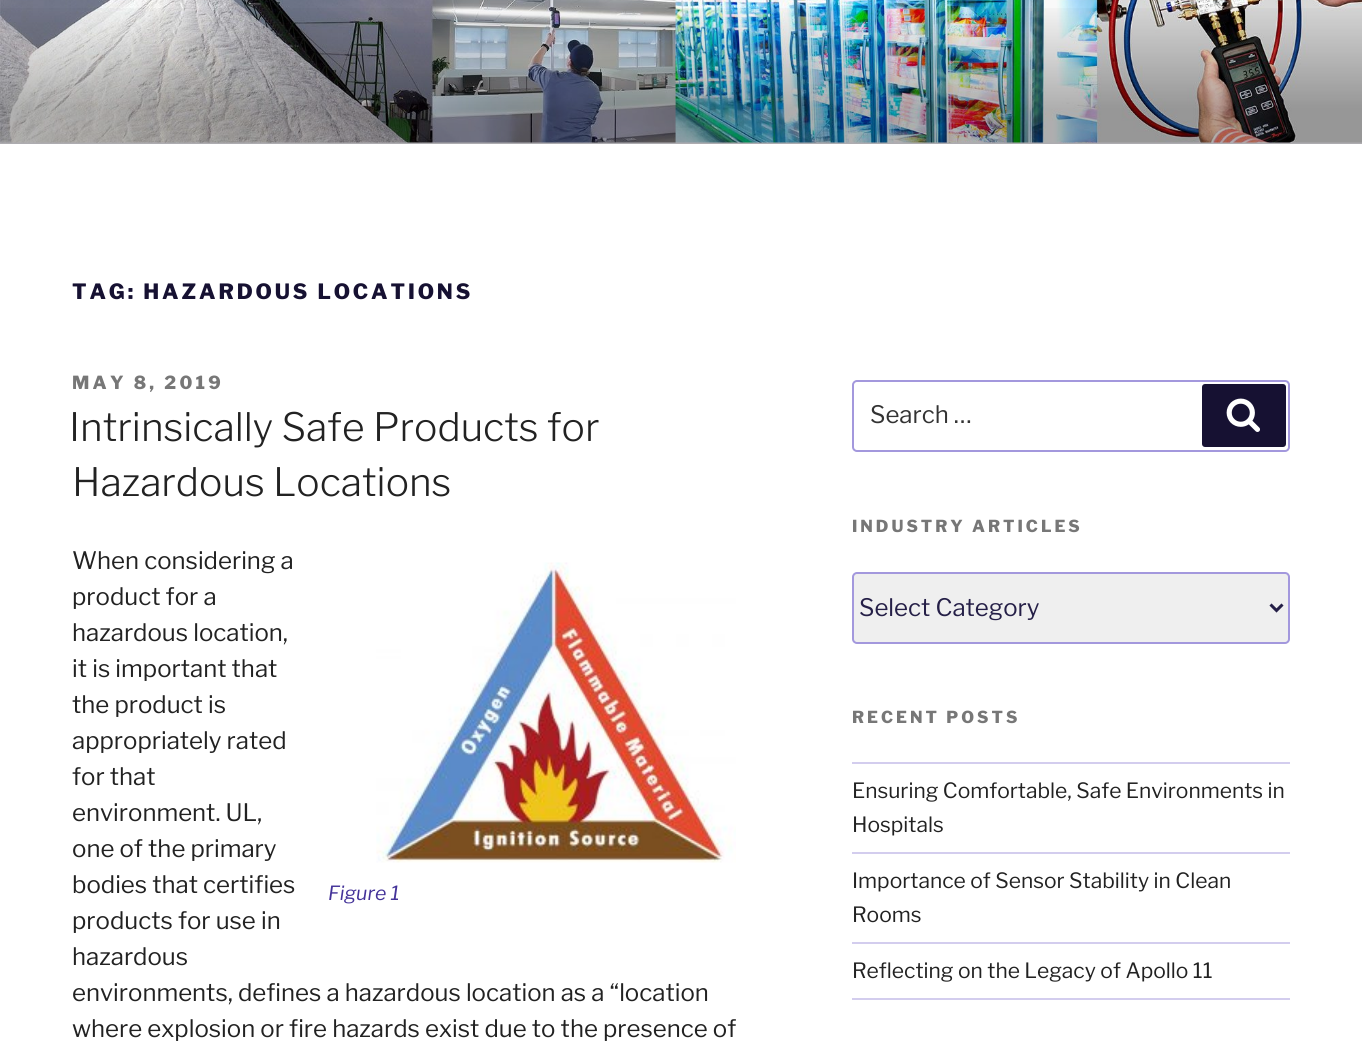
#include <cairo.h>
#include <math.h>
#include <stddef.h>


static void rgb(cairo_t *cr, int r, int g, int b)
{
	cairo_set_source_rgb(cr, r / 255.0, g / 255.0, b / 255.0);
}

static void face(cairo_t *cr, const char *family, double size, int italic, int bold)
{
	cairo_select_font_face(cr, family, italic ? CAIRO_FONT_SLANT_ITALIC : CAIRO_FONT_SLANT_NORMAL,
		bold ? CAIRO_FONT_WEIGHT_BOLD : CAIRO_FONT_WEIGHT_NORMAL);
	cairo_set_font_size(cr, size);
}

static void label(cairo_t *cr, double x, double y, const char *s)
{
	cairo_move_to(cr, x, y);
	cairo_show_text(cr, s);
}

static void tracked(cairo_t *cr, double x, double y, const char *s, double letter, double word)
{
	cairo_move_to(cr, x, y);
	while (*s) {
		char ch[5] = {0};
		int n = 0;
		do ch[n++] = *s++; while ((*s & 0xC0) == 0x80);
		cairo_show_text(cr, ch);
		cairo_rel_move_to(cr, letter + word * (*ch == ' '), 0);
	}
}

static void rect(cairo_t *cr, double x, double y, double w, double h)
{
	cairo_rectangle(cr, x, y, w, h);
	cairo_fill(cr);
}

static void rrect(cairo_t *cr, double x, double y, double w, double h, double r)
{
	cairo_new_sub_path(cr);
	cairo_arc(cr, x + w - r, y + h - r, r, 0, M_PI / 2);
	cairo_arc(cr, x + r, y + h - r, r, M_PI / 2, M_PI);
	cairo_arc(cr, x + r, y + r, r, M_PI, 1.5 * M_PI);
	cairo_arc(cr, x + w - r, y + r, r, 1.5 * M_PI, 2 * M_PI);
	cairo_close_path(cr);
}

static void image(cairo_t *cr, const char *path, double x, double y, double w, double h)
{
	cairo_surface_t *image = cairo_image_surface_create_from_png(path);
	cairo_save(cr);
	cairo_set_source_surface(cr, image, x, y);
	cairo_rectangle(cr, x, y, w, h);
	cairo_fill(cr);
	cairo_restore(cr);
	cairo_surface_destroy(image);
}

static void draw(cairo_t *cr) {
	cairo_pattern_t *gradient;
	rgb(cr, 255, 255, 255);
	cairo_paint(cr);
	rgb(cr, 248, 247, 252);
	rect(cr, 0, 142, 1362, 2);
	image(cr, "image0.png", 0, 0, 1362, 143);
	gradient = cairo_pattern_create_linear(681, 0, 681, 144);
	cairo_pattern_add_color_stop_rgba(gradient, 0, 0, 0, 0, 0);
	cairo_pattern_add_color_stop_rgba(gradient, 0.75, 0, 0, 0, 0.3);
	cairo_pattern_add_color_stop_rgba(gradient, 1, 0, 0, 0, 0.3);
	cairo_set_source(cr, gradient);
	cairo_pattern_destroy(gradient);
	rect(cr, 0, 8, 1362, 136);
	face(cr, "Libre Franklin ExtraBold", 21, 0, 0);
	rgb(cr, 22, 17, 50);
	tracked(cr, 72, 299, "TAG: HAZARDOUS LOCATIONS", 2.9, 0);
	face(cr, "Libre Franklin ExtraBold", 18, 0, 0);
	rgb(cr, 119, 119, 119);
	tracked(cr, 72, 389, "MAY 8, 2019", 3.25, 0);
	face(cr, "Libre Franklin Light", 39, 0, 0);
	rgb(cr, 34, 34, 34);
	label(cr, 69, 441, "Intrinsically Safe Products for");
	label(cr, 72, 496, "Hazardous Locations");
	face(cr, "Libre Franklin", 24, 0, 0);
	label(cr, 72, 569, "When considering a");
	label(cr, 72, 605, "product for a");
	label(cr, 72, 641, "hazardous location,");
	label(cr, 72, 677, "it is important that");
	label(cr, 72, 713, "the product is");
	label(cr, 72, 749, "appropriately rated");
	label(cr, 72, 785, "for that");
	label(cr, 72, 821, "environment. UL,");
	label(cr, 72, 857, "one of the primary");
	label(cr, 72, 893, "bodies that certifies");
	label(cr, 72, 929, "products for use in");
	label(cr, 72, 965, "hazardous");
	label(cr, 72, 1001, "environments, defines a hazardous location as a “location");
	label(cr, 72, 1037, "where explosion or fire hazards exist due to the presence of");
	image(cr, "image1.png", 376, 562, 360, 301);
	face(cr, "Libre Franklin", 19.5, 1, 0);
	rgb(cr, 68, 51, 153);
	label(cr, 328, 900, "Figure 1");
	rrect(cr, 853, 381, 436, 70, 4);
	rgb(cr, 163, 152, 221);
	cairo_stroke(cr);
	face(cr, "Libre Franklin", 24, 0, 0);
	rgb(cr, 51, 51, 51);
	label(cr, 870, 423, "Search …");
	rgb(cr, 22, 17, 50);
	rrect(cr, 1202, 384, 84, 63, 3);
	cairo_fill(cr);
	image(cr, "image2.png", 1226, 398, 34, 34);
	face(cr, "Libre Franklin ExtraBold", 16.5, 0, 0);
	rgb(cr, 119, 119, 119);
	tracked(cr, 852, 532, "INDUSTRY ARTICLES", 3, 0);
	rgb(cr, 239, 239, 239);
	rrect(cr, 853, 573, 436, 70, 4);
	cairo_fill_preserve(cr);
	rgb(cr, 163, 152, 221);
	cairo_stroke(cr);
	cairo_new_path(cr);
	cairo_move_to(cr, 1270.5, 604.5);
	cairo_line_to(cr, 1276.5, 610.5);
	cairo_line_to(cr, 1282.5, 604.5);
	rgb(cr, 37, 31, 71);
	cairo_set_line_width(cr, 3);
	cairo_stroke(cr);
	face(cr, "Libre Franklin", 24, 0, 0);
	label(cr, 859, 616, "Select Category");
	face(cr, "Libre Franklin ExtraBold", 16.5, 0, 0);
	rgb(cr, 119, 119, 119);
	tracked(cr, 852, 723, "RECENT POSTS", 3, 0);
	rgb(cr, 211, 205, 238);
	rect(cr, 852, 762, 438, 2);
	rect(cr, 852, 852, 438, 2);
	face(cr, "Libre Franklin", 21, 0, 0);
	rgb(cr, 34, 34, 34);
	label(cr, 852, 798, "Ensuring Comfortable, Safe Environments in");
	label(cr, 852, 832, "Hospitals");
	rgb(cr, 211, 205, 238);
	rect(cr, 852, 942, 438, 2);
	rgb(cr, 34, 34, 34);
	label(cr, 852, 888, "Importance of Sensor Stability in Clean");
	label(cr, 852, 922, "Rooms");
	rgb(cr, 211, 205, 238);
	rect(cr, 852, 998, 438, 2);
	rgb(cr, 34, 34, 34);
	label(cr, 852, 978, "Reflecting on the Legacy of Apollo 11");
}

int main(void) {
	cairo_surface_t *surface = cairo_image_surface_create(CAIRO_FORMAT_RGB24, 1362, 1054);
	cairo_t *cr = cairo_create(surface);
	cairo_font_options_t *options = cairo_font_options_create();
	cairo_font_options_set_hint_metrics(options, CAIRO_HINT_METRICS_OFF);
	cairo_font_options_set_hint_style(options, CAIRO_HINT_STYLE_NONE);
	cairo_set_font_options(cr, options);
	cairo_set_miter_limit(cr, 4);
	draw(cr);
	cairo_surface_write_to_png(surface, "render.png");
	cairo_font_options_destroy(options);
	cairo_destroy(cr);
	cairo_surface_destroy(surface);
	return 0;
}
